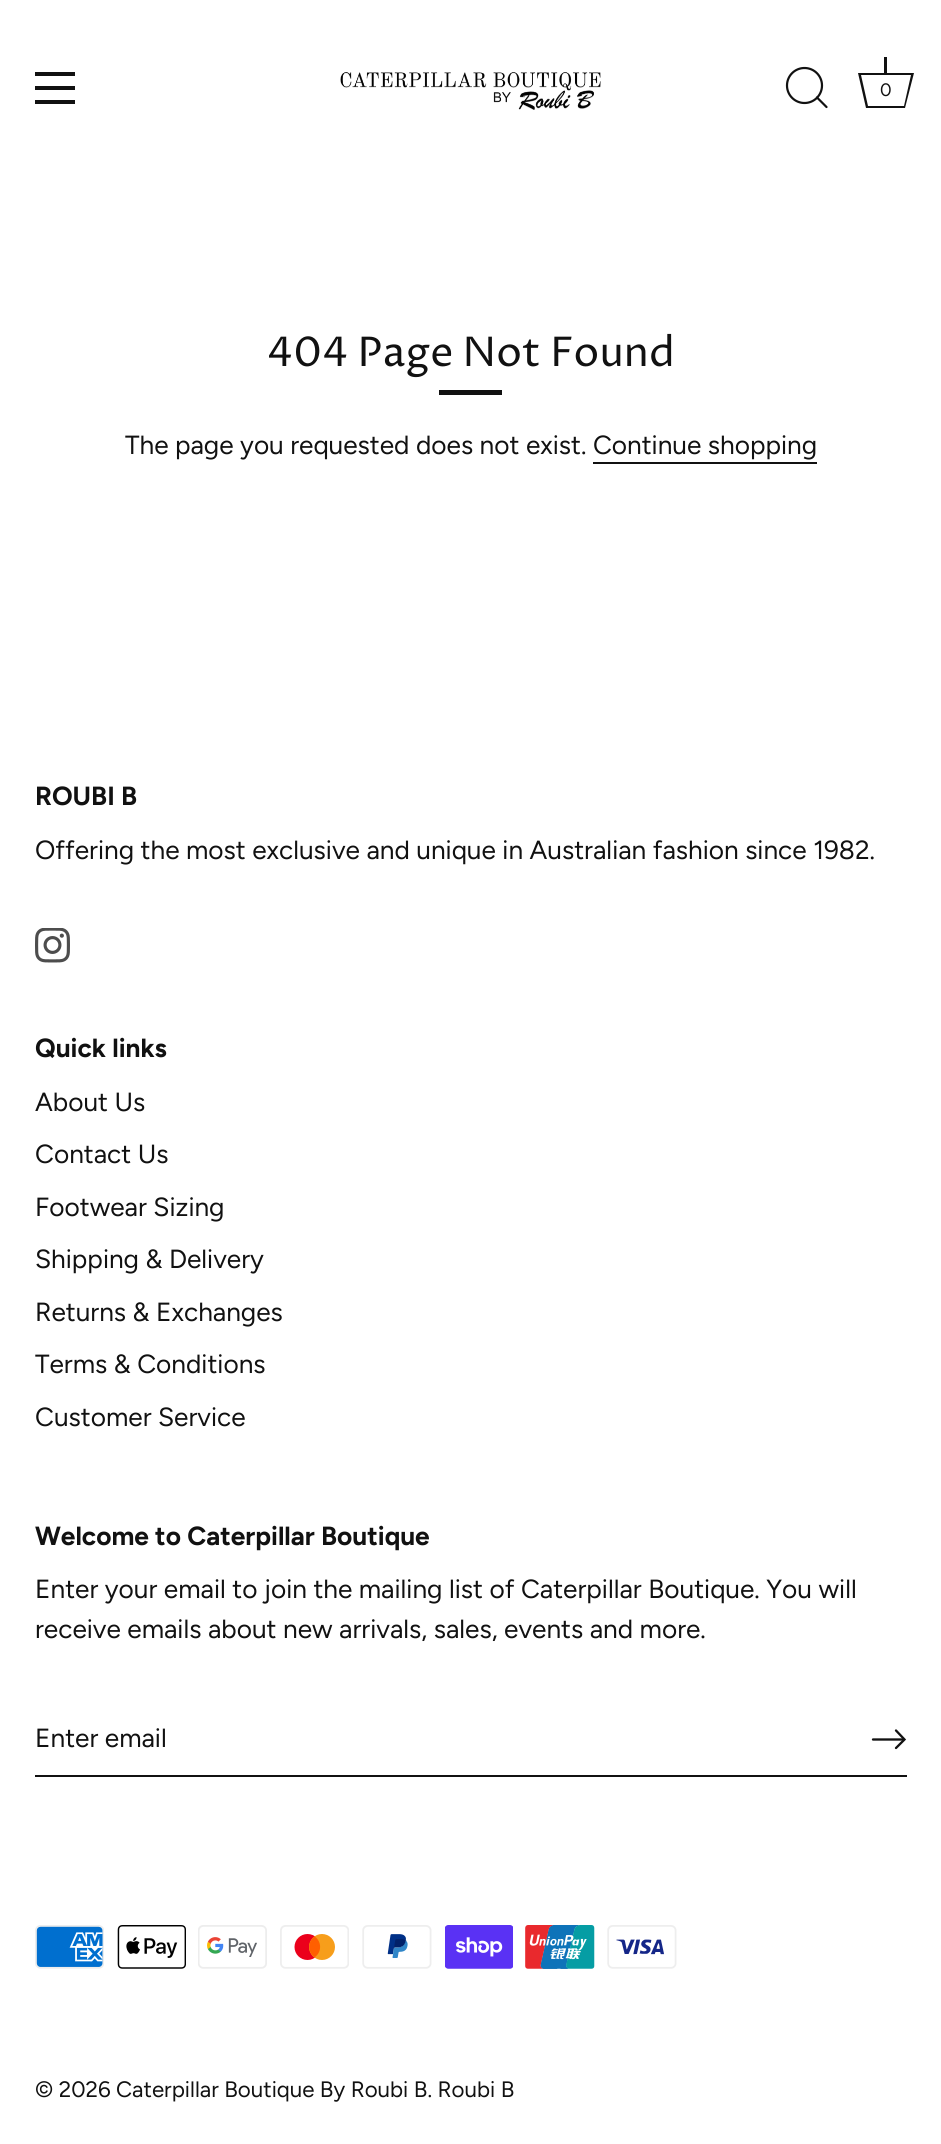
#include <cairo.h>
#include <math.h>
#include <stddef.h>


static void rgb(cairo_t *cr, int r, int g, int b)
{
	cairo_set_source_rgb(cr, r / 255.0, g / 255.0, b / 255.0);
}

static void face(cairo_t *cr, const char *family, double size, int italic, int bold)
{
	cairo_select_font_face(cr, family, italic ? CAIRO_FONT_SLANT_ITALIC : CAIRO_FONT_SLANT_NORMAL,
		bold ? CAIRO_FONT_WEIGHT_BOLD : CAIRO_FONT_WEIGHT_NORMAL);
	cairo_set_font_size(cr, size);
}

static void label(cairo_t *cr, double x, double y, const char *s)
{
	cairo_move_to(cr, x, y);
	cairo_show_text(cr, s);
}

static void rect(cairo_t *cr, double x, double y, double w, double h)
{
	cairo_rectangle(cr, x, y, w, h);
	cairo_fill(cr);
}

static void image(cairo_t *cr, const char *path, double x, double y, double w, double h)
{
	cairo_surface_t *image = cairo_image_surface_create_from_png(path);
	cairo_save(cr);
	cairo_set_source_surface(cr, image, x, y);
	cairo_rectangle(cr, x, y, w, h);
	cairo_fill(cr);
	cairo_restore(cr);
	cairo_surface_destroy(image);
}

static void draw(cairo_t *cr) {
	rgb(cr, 255, 255, 255);
	cairo_paint(cr);
	rgb(cr, 17, 17, 17);
	rect(cr, 35, 72, 40, 4);
	rect(cr, 35, 86, 40, 4);
	rect(cr, 35, 100, 40, 4);
	image(cr, "image0.png", 340, 72, 261, 38);
	cairo_arc(cr, 804.5, 85.5, 17.5, 0, 2 * M_PI);
	cairo_set_line_width(cr, 2.2);
	cairo_stroke(cr);
	cairo_new_path(cr);
	cairo_move_to(cr, 826.5, 107);
	cairo_line_to(cr, 817, 97.5);
	cairo_set_line_cap(cr, CAIRO_LINE_CAP_ROUND);
	cairo_set_line_join(cr, CAIRO_LINE_JOIN_ROUND);
	cairo_stroke(cr);
	rect(cr, 884, 57, 3, 16);
	cairo_new_path(cr);
	cairo_move_to(cr, 911, 75);
	cairo_line_to(cr, 904, 106);
	cairo_line_to(cr, 868, 106);
	cairo_line_to(cr, 861, 75);
	cairo_line_to(cr, 911, 75);
	cairo_move_to(cr, 914, 73);
	cairo_line_to(cr, 858, 73);
	cairo_line_to(cr, 866, 108);
	cairo_line_to(cr, 905, 108);
	cairo_close_path(cr);
	cairo_fill(cr);
	face(cr, "Figtree", 18, 0, 0);
	label(cr, 880, 96, "0");
	face(cr, "Proza Libre", 41, 0, 0);
	label(cr, 267, 366, "404 Page Not Found");
	rect(cr, 439, 390, 63, 5);
	face(cr, "Figtree", 26.25, 0, 0);
	label(cr, 125, 454, "The page you requested does not exist. Continue shopping");
	rect(cr, 593, 462, 224, 2);
	face(cr, "Figtree", 26.25, 0, 1);
	label(cr, 35, 805, "ROUBI B");
	face(cr, "Figtree", 26.25, 0, 0);
	label(cr, 35, 859, "Offering the most exclusive and unique in Australian fashion since 1982.");
	image(cr, "image1.png", 35, 928, 35, 35);
	face(cr, "Figtree", 26.25, 0, 1);
	label(cr, 35, 1057, "Quick links");
	face(cr, "Figtree", 26.25, 0, 0);
	label(cr, 35, 1111, "About Us");
	label(cr, 35, 1163, "Contact Us");
	label(cr, 35, 1216, "Footwear Sizing");
	label(cr, 35, 1268, "Shipping & Delivery");
	label(cr, 35, 1321, "Returns & Exchanges");
	label(cr, 35, 1373, "Terms & Conditions");
	label(cr, 35, 1426, "Customer Service");
	face(cr, "Figtree", 26.25, 0, 1);
	label(cr, 35, 1545, "Welcome to Caterpillar Boutique");
	face(cr, "Figtree", 26.25, 0, 0);
	label(cr, 35, 1598, "Enter your email to join the mailing list of Caterpillar Boutique. You will");
	label(cr, 35, 1638, "receive emails about new arrivals, sales, events and more.");
	rect(cr, 35, 1775, 872, 2);
	label(cr, 35, 1747, "Enter email");
	cairo_new_path(cr);
	cairo_move_to(cr, 896, 1748);
	cairo_line_to(cr, 904.5, 1739.5);
	cairo_line_to(cr, 896, 1730.5);
	cairo_set_line_width(cr, 2.3);
	cairo_set_line_join(cr, CAIRO_LINE_JOIN_MITER);
	cairo_stroke(cr);
	cairo_new_path(cr);
	cairo_move_to(cr, 903.5, 1739.5);
	cairo_line_to(cr, 873, 1739.5);
	cairo_set_line_join(cr, CAIRO_LINE_JOIN_ROUND);
	cairo_stroke(cr);
	image(cr, "image2.png", 35, 1925, 69, 44);
	image(cr, "image3.png", 117, 1925, 69, 44);
	image(cr, "image4.png", 198, 1925, 69, 44);
	image(cr, "image5.png", 280, 1925, 69, 44);
	image(cr, "image6.png", 362, 1925, 70, 44);
	image(cr, "image7.png", 445, 1925, 68, 44);
	image(cr, "image8.png", 525, 1925, 70, 44);
	image(cr, "image9.png", 607, 1925, 70, 44);
	face(cr, "Figtree", 22.3, 0, 0);
	label(cr, 35, 2097, "© 2026 Caterpillar Boutique By Roubi B. Roubi B");
}

int main(void) {
	cairo_surface_t *surface = cairo_image_surface_create(CAIRO_FORMAT_RGB24, 941, 2144);
	cairo_t *cr = cairo_create(surface);
	cairo_font_options_t *options = cairo_font_options_create();
	cairo_font_options_set_hint_metrics(options, CAIRO_HINT_METRICS_OFF);
	cairo_font_options_set_hint_style(options, CAIRO_HINT_STYLE_NONE);
	cairo_set_font_options(cr, options);
	cairo_set_miter_limit(cr, 4);
	draw(cr);
	cairo_surface_write_to_png(surface, "render.png");
	cairo_font_options_destroy(options);
	cairo_destroy(cr);
	cairo_surface_destroy(surface);
	return 0;
}
